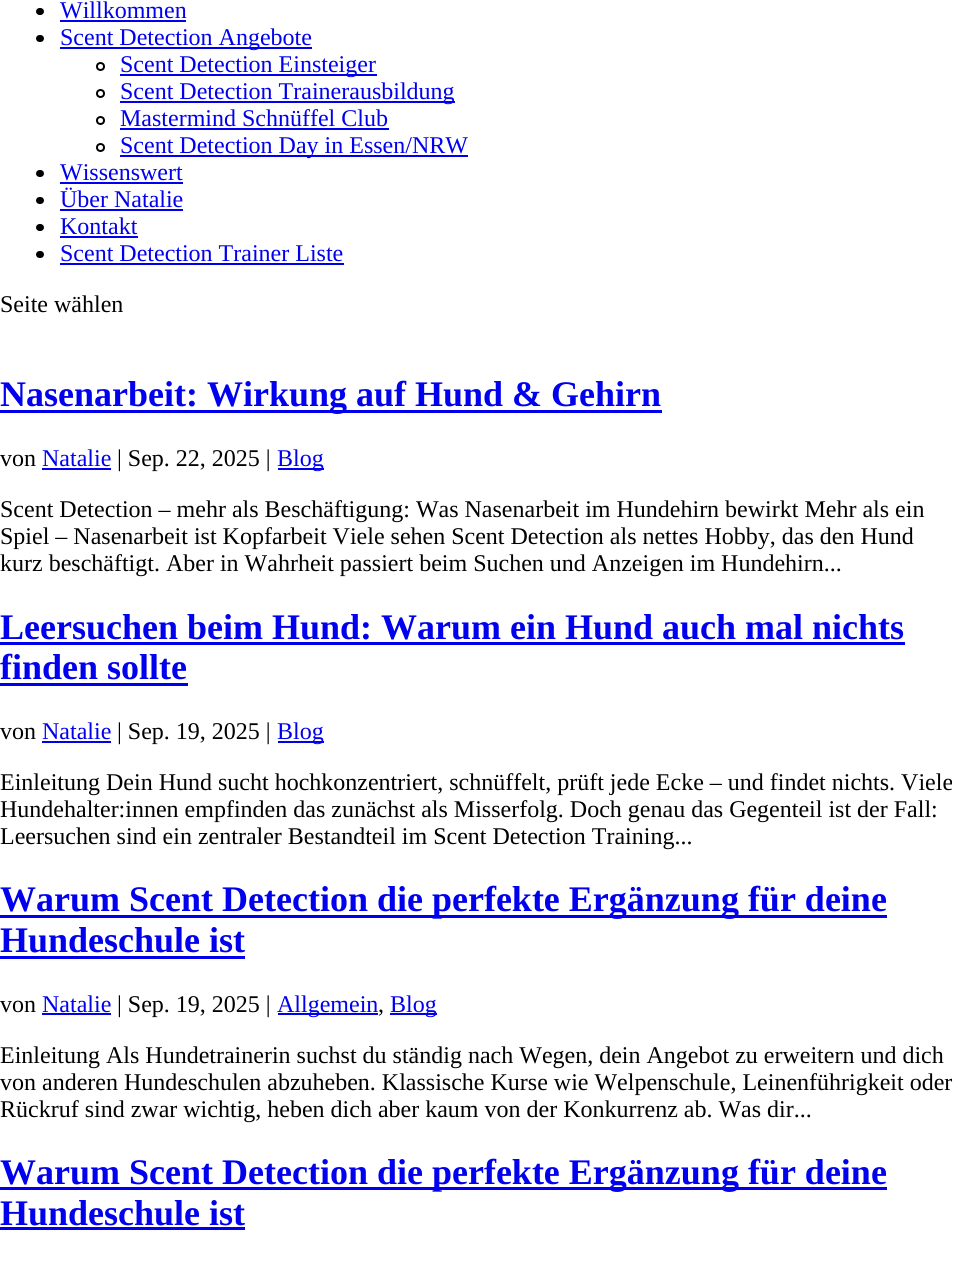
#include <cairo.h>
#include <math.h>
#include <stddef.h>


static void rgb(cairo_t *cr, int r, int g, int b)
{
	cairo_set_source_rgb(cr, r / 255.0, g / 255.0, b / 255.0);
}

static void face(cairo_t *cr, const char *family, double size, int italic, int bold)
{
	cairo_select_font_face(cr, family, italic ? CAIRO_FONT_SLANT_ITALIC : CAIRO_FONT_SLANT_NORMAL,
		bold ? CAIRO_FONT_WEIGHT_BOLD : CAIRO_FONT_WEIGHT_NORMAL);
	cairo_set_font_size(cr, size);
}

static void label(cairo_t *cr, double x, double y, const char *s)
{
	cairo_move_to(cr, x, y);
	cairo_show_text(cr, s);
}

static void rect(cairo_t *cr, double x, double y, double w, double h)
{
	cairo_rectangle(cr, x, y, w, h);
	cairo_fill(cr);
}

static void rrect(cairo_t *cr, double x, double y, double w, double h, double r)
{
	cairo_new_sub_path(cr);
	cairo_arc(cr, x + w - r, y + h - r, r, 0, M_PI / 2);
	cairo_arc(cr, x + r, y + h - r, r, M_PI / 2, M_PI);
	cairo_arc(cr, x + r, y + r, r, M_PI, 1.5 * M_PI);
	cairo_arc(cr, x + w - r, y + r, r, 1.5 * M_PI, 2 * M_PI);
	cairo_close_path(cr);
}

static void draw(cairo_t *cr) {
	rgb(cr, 255, 255, 255);
	cairo_paint(cr);
	rgb(cr, 0, 0, 0);
	rrect(cr, 36, 8, 8, 7, 3.5);
	cairo_fill(cr);
	face(cr, "Liberation Serif", 24, 0, 0);
	rgb(cr, 0, 0, 238);
	label(cr, 60, 18, "Willkommen");
	rect(cr, 60, 20, 126, 2);
	rgb(cr, 0, 0, 0);
	rrect(cr, 36, 35, 8, 7, 3.5);
	cairo_fill(cr);
	rgb(cr, 0, 0, 238);
	rect(cr, 60, 47, 252, 2);
	label(cr, 60, 45, "Scent Detection Angebote");
	cairo_new_path(cr);
	cairo_arc(cr, 100.5, 66.5, 3.5, 0, 2 * M_PI);
	rgb(cr, 0, 0, 0);
	cairo_stroke(cr);
	rgb(cr, 0, 0, 238);
	rect(cr, 120, 74, 257, 2);
	label(cr, 120, 72, "Scent Detection Einsteiger");
	cairo_new_path(cr);
	cairo_arc(cr, 100.5, 93.5, 3.5, 0, 2 * M_PI);
	rgb(cr, 0, 0, 0);
	cairo_stroke(cr);
	rgb(cr, 0, 0, 238);
	rect(cr, 120, 101, 335, 2);
	label(cr, 120, 99, "Scent Detection Trainerausbildung");
	cairo_new_path(cr);
	cairo_arc(cr, 100.5, 120.5, 3.5, 0, 2 * M_PI);
	rgb(cr, 0, 0, 0);
	cairo_stroke(cr);
	rgb(cr, 0, 0, 238);
	label(cr, 120, 126, "Mastermind Schnüffel Club");
	rect(cr, 120, 128, 269, 2);
	cairo_new_path(cr);
	cairo_arc(cr, 100.5, 147.5, 3.5, 0, 2 * M_PI);
	rgb(cr, 0, 0, 0);
	cairo_stroke(cr);
	rgb(cr, 0, 0, 238);
	rect(cr, 120, 155, 348, 2);
	label(cr, 120, 153, "Scent Detection Day in Essen/NRW");
	rgb(cr, 0, 0, 0);
	rrect(cr, 36, 170, 8, 7, 3.5);
	cairo_fill(cr);
	rgb(cr, 0, 0, 238);
	label(cr, 60, 180, "Wissenswert");
	rect(cr, 60, 182, 123, 2);
	rgb(cr, 0, 0, 0);
	rrect(cr, 36, 197, 8, 7, 3.5);
	cairo_fill(cr);
	rgb(cr, 0, 0, 238);
	label(cr, 60, 207, "Über Natalie");
	rect(cr, 60, 209, 123, 2);
	rgb(cr, 0, 0, 0);
	rrect(cr, 36, 224, 8, 7, 3.5);
	cairo_fill(cr);
	rgb(cr, 0, 0, 238);
	label(cr, 60, 234, "Kontakt");
	rect(cr, 60, 236, 78, 2);
	rgb(cr, 0, 0, 0);
	rrect(cr, 36, 251, 8, 7, 3.5);
	cairo_fill(cr);
	rgb(cr, 0, 0, 238);
	label(cr, 60, 261, "Scent Detection Trainer Liste");
	rect(cr, 60, 263, 284, 2);
	rgb(cr, 0, 0, 0);
	label(cr, 0, 312, "Seite wählen");
	rgb(cr, 0, 0, 238);
	rect(cr, 0, 410, 662, 3);
	face(cr, "Liberation Serif", 36, 0, 1);
	label(cr, 0, 406, "Nasenarbeit: Wirkung auf Hund & Gehirn");
	face(cr, "Liberation Serif", 24, 0, 0);
	rgb(cr, 0, 0, 0);
	label(cr, 0, 466, "von");
	rgb(cr, 0, 0, 238);
	label(cr, 42, 466, "Natalie");
	rect(cr, 42, 468, 69, 2);
	rgb(cr, 0, 0, 0);
	label(cr, 117, 466, "| Sep. 22, 2025 |");
	rgb(cr, 0, 0, 238);
	rect(cr, 278, 468, 46, 2);
	label(cr, 277, 466, "Blog");
	rgb(cr, 0, 0, 0);
	label(cr, 0, 517, "Scent Detection – mehr als Beschäftigung: Was Nasenarbeit im Hundehirn bewirkt Mehr als ein");
	label(cr, 0, 544, "Spiel – Nasenarbeit ist Kopfarbeit Viele sehen Scent Detection als nettes Hobby, das den Hund");
	label(cr, 0, 571, "kurz beschäftigt. Aber in Wahrheit passiert beim Suchen und Anzeigen im Hundehirn...");
	face(cr, "Liberation Serif", 36, 0, 1);
	rgb(cr, 0, 0, 238);
	label(cr, 0, 639, "Leersuchen beim Hund: Warum ein Hund auch mal nichts");
	rect(cr, 0, 642, 905, 3);
	label(cr, 0, 679, "finden sollte");
	rect(cr, 0, 683, 188, 3);
	face(cr, "Liberation Serif", 24, 0, 0);
	rgb(cr, 0, 0, 0);
	label(cr, 0, 739, "von");
	rgb(cr, 0, 0, 238);
	label(cr, 42, 739, "Natalie");
	rect(cr, 42, 741, 69, 2);
	rgb(cr, 0, 0, 0);
	label(cr, 117, 739, "| Sep. 19, 2025 |");
	rgb(cr, 0, 0, 238);
	rect(cr, 278, 741, 46, 2);
	label(cr, 277, 739, "Blog");
	rgb(cr, 0, 0, 0);
	label(cr, 0, 790, "Einleitung Dein Hund sucht hochkonzentriert, schnüffelt, prüft jede Ecke – und findet nichts. Viele");
	label(cr, 0, 817, "Hundehalter:innen empfinden das zunächst als Misserfolg. Doch genau das Gegenteil ist der Fall:");
	label(cr, 0, 844, "Leersuchen sind ein zentraler Bestandteil im Scent Detection Training...");
	rgb(cr, 0, 0, 238);
	rect(cr, 0, 915, 887, 3);
	face(cr, "Liberation Serif", 36, 0, 1);
	label(cr, 0, 911, "Warum Scent Detection die perfekte Ergänzung für deine");
	label(cr, 0, 952, "Hundeschule ist");
	rect(cr, 0, 956, 245, 3);
	face(cr, "Liberation Serif", 24, 0, 0);
	rgb(cr, 0, 0, 0);
	label(cr, 0, 1012, "von");
	rgb(cr, 0, 0, 238);
	label(cr, 42, 1012, "Natalie");
	rect(cr, 42, 1013, 69, 2);
	rgb(cr, 0, 0, 0);
	label(cr, 117, 1012, "| Sep. 19, 2025 |");
	rgb(cr, 0, 0, 238);
	rect(cr, 278, 1013, 100, 2);
	label(cr, 277, 1012, "Allgemein");
	rgb(cr, 0, 0, 0);
	label(cr, 378, 1012, ",");
	rgb(cr, 0, 0, 238);
	rect(cr, 390, 1013, 47, 2);
	label(cr, 390, 1012, "Blog");
	rgb(cr, 0, 0, 0);
	label(cr, 0, 1063, "Einleitung Als Hundetrainerin suchst du ständig nach Wegen, dein Angebot zu erweitern und dich");
	label(cr, 0, 1090, "von anderen Hundeschulen abzuheben. Klassische Kurse wie Welpenschule, Leinenführigkeit oder");
	label(cr, 0, 1117, "Rückruf sind zwar wichtig, heben dich aber kaum von der Konkurrenz ab. Was dir...");
	rgb(cr, 0, 0, 238);
	rect(cr, 0, 1187, 887, 3);
	face(cr, "Liberation Serif", 36, 0, 1);
	label(cr, 0, 1184, "Warum Scent Detection die perfekte Ergänzung für deine");
	label(cr, 0, 1225, "Hundeschule ist");
	rect(cr, 0, 1227, 245, 3);
}

int main(void) {
	cairo_surface_t *surface = cairo_image_surface_create(CAIRO_FORMAT_RGB24, 955, 1276);
	cairo_t *cr = cairo_create(surface);
	cairo_font_options_t *options = cairo_font_options_create();
	cairo_font_options_set_hint_metrics(options, CAIRO_HINT_METRICS_OFF);
	cairo_font_options_set_hint_style(options, CAIRO_HINT_STYLE_NONE);
	cairo_set_font_options(cr, options);
	cairo_set_miter_limit(cr, 4);
	draw(cr);
	cairo_surface_write_to_png(surface, "render.png");
	cairo_font_options_destroy(options);
	cairo_destroy(cr);
	cairo_surface_destroy(surface);
	return 0;
}
